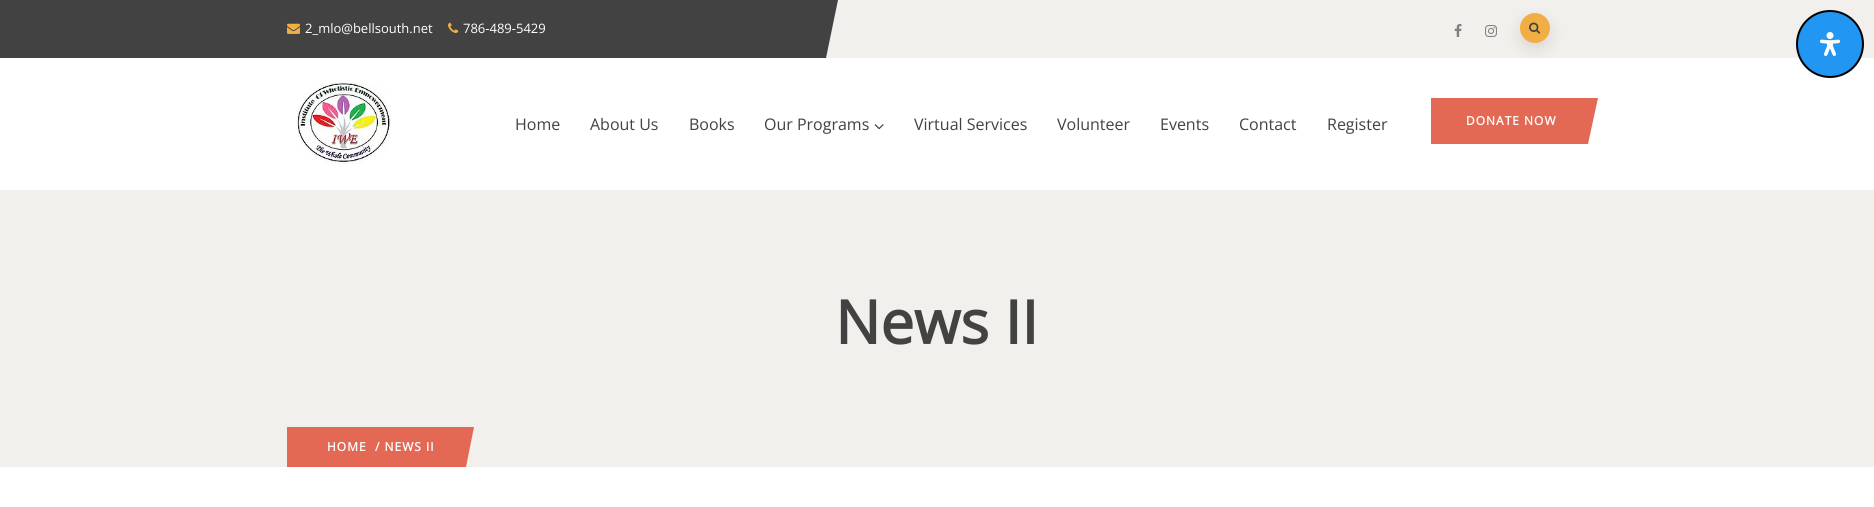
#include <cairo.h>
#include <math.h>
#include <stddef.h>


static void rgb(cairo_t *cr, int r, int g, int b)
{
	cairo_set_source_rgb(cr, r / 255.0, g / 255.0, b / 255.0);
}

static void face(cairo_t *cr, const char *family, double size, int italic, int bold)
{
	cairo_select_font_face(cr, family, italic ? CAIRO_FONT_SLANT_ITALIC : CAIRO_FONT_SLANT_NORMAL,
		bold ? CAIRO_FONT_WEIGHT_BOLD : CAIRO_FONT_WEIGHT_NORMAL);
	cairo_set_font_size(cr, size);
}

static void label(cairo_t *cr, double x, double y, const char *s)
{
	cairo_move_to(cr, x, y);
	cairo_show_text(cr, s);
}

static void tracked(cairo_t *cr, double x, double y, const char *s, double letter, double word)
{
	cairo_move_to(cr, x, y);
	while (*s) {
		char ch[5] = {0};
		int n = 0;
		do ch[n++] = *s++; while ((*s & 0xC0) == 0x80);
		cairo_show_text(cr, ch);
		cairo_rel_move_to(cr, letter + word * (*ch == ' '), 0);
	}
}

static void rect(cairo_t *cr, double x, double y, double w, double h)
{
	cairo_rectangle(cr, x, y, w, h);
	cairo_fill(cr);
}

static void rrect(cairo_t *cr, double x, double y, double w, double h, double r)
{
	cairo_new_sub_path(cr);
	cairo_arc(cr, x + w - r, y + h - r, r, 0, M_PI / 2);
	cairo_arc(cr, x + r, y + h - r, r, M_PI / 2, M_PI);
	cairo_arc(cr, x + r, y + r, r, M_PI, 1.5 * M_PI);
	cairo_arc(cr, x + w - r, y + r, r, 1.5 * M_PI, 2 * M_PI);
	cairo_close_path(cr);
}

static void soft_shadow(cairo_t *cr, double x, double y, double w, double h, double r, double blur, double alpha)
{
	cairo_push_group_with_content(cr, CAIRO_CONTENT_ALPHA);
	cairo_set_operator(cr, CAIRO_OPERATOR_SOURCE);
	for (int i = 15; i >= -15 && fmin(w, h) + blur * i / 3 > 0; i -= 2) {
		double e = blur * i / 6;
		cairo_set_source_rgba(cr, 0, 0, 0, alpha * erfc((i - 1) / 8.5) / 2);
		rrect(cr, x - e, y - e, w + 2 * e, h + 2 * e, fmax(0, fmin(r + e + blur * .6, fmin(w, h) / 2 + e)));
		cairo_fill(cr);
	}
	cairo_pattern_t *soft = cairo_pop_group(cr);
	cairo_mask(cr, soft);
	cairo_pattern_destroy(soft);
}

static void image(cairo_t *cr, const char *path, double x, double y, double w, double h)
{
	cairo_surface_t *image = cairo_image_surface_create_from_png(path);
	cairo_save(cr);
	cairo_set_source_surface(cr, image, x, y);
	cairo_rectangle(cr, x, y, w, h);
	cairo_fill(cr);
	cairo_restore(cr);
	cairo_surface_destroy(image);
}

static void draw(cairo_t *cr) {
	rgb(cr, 255, 255, 255);
	cairo_paint(cr);
	rgb(cr, 242, 240, 236);
	rect(cr, 826, 0, 1048, 58);
	rgb(cr, 66, 66, 66);
	rect(cr, 0, 0, 284, 58);
	cairo_new_path(cr);
	cairo_move_to(cr, 284, 0);
	cairo_line_to(cr, 838, 0);
	cairo_line_to(cr, 826, 58);
	cairo_line_to(cr, 272, 58);
	cairo_close_path(cr);
	cairo_fill(cr);
	image(cr, "image0.png", 287, 23, 13, 11);
	face(cr, "Open Sans", 13, 0, 0);
	rgb(cr, 255, 255, 255);
	label(cr, 305, 33, "2_mlo@bellsouth.net");
	image(cr, "image1.png", 448, 22, 11, 11);
	label(cr, 463, 33, "786-489-5429");
	image(cr, "image2.png", 1454, 24, 8, 13);
	image(cr, "image3.png", 1485, 25, 12, 12);
	rgb(cr, 0, 0, 0);
	soft_shadow(cr, 1520, 19, 30, 30, 15, 7, 0.1);
	rgb(cr, 241, 174, 68);
	cairo_arc(cr, 1535, 28, 15, 0, 2 * M_PI);
	cairo_fill(cr);
	image(cr, "image4.png", 1529, 22, 12, 12);
	image(cr, "image5.png", 296, 82, 95, 82);
	face(cr, "Open Sans", 16, 0, 0);
	rgb(cr, 66, 66, 66);
	label(cr, 515, 130, "Home");
	label(cr, 590, 130, "About Us");
	label(cr, 689, 130, "Books");
	label(cr, 764, 130, "Our Programs");
	image(cr, "image6.png", 874, 124, 10, 6);
	label(cr, 914, 130, "Virtual Services");
	label(cr, 1057, 130, "Volunteer");
	label(cr, 1160, 130, "Events");
	label(cr, 1239, 130, "Contact");
	label(cr, 1327, 130, "Register");
	rgb(cr, 227, 105, 85);
	rect(cr, 1431, 98, 11, 46);
	cairo_new_path(cr);
	cairo_move_to(cr, 1442, 98);
	cairo_line_to(cr, 1598, 98);
	cairo_line_to(cr, 1588, 144);
	cairo_line_to(cr, 1432, 144);
	cairo_close_path(cr);
	cairo_fill(cr);
	face(cr, "Open Sans", 12, 0, 1);
	rgb(cr, 255, 255, 255);
	tracked(cr, 1466, 125, "DONATE NOW", 1, 0);
	rgb(cr, 242, 240, 236);
	rect(cr, 0, 190, 1874, 277);
	face(cr, "Open Sans", 60, 0, 1);
	rgb(cr, 66, 66, 66);
	label(cr, 835, 344, "News II");
	rgb(cr, 227, 105, 85);
	rect(cr, 287, 427, 10, 40);
	cairo_new_path(cr);
	cairo_move_to(cr, 297, 427);
	cairo_line_to(cr, 474, 427);
	cairo_line_to(cr, 466, 467);
	cairo_line_to(cr, 288, 467);
	cairo_close_path(cr);
	cairo_fill(cr);
	face(cr, "Open Sans", 12, 0, 1);
	rgb(cr, 255, 255, 255);
	tracked(cr, 327, 451, "HOME", 1, 0);
	tracked(cr, 375, 451, "/ NEWS II", 1, 0);
	rgb(cr, 33, 150, 243);
	cairo_new_path(cr);
	cairo_arc(cr, 1830, 44, 33, 0, 2 * M_PI);
	cairo_fill_preserve(cr);
	rgb(cr, 0, 0, 0);
	cairo_stroke(cr);
	image(cr, "image7.png", 1820, 32, 20, 24);
}

int main(void) {
	cairo_surface_t *surface = cairo_image_surface_create(CAIRO_FORMAT_RGB24, 1874, 507);
	cairo_t *cr = cairo_create(surface);
	cairo_font_options_t *options = cairo_font_options_create();
	cairo_font_options_set_hint_metrics(options, CAIRO_HINT_METRICS_OFF);
	cairo_font_options_set_hint_style(options, CAIRO_HINT_STYLE_NONE);
	cairo_set_font_options(cr, options);
	cairo_set_miter_limit(cr, 4);
	draw(cr);
	cairo_surface_write_to_png(surface, "render.png");
	cairo_font_options_destroy(options);
	cairo_destroy(cr);
	cairo_surface_destroy(surface);
	return 0;
}
